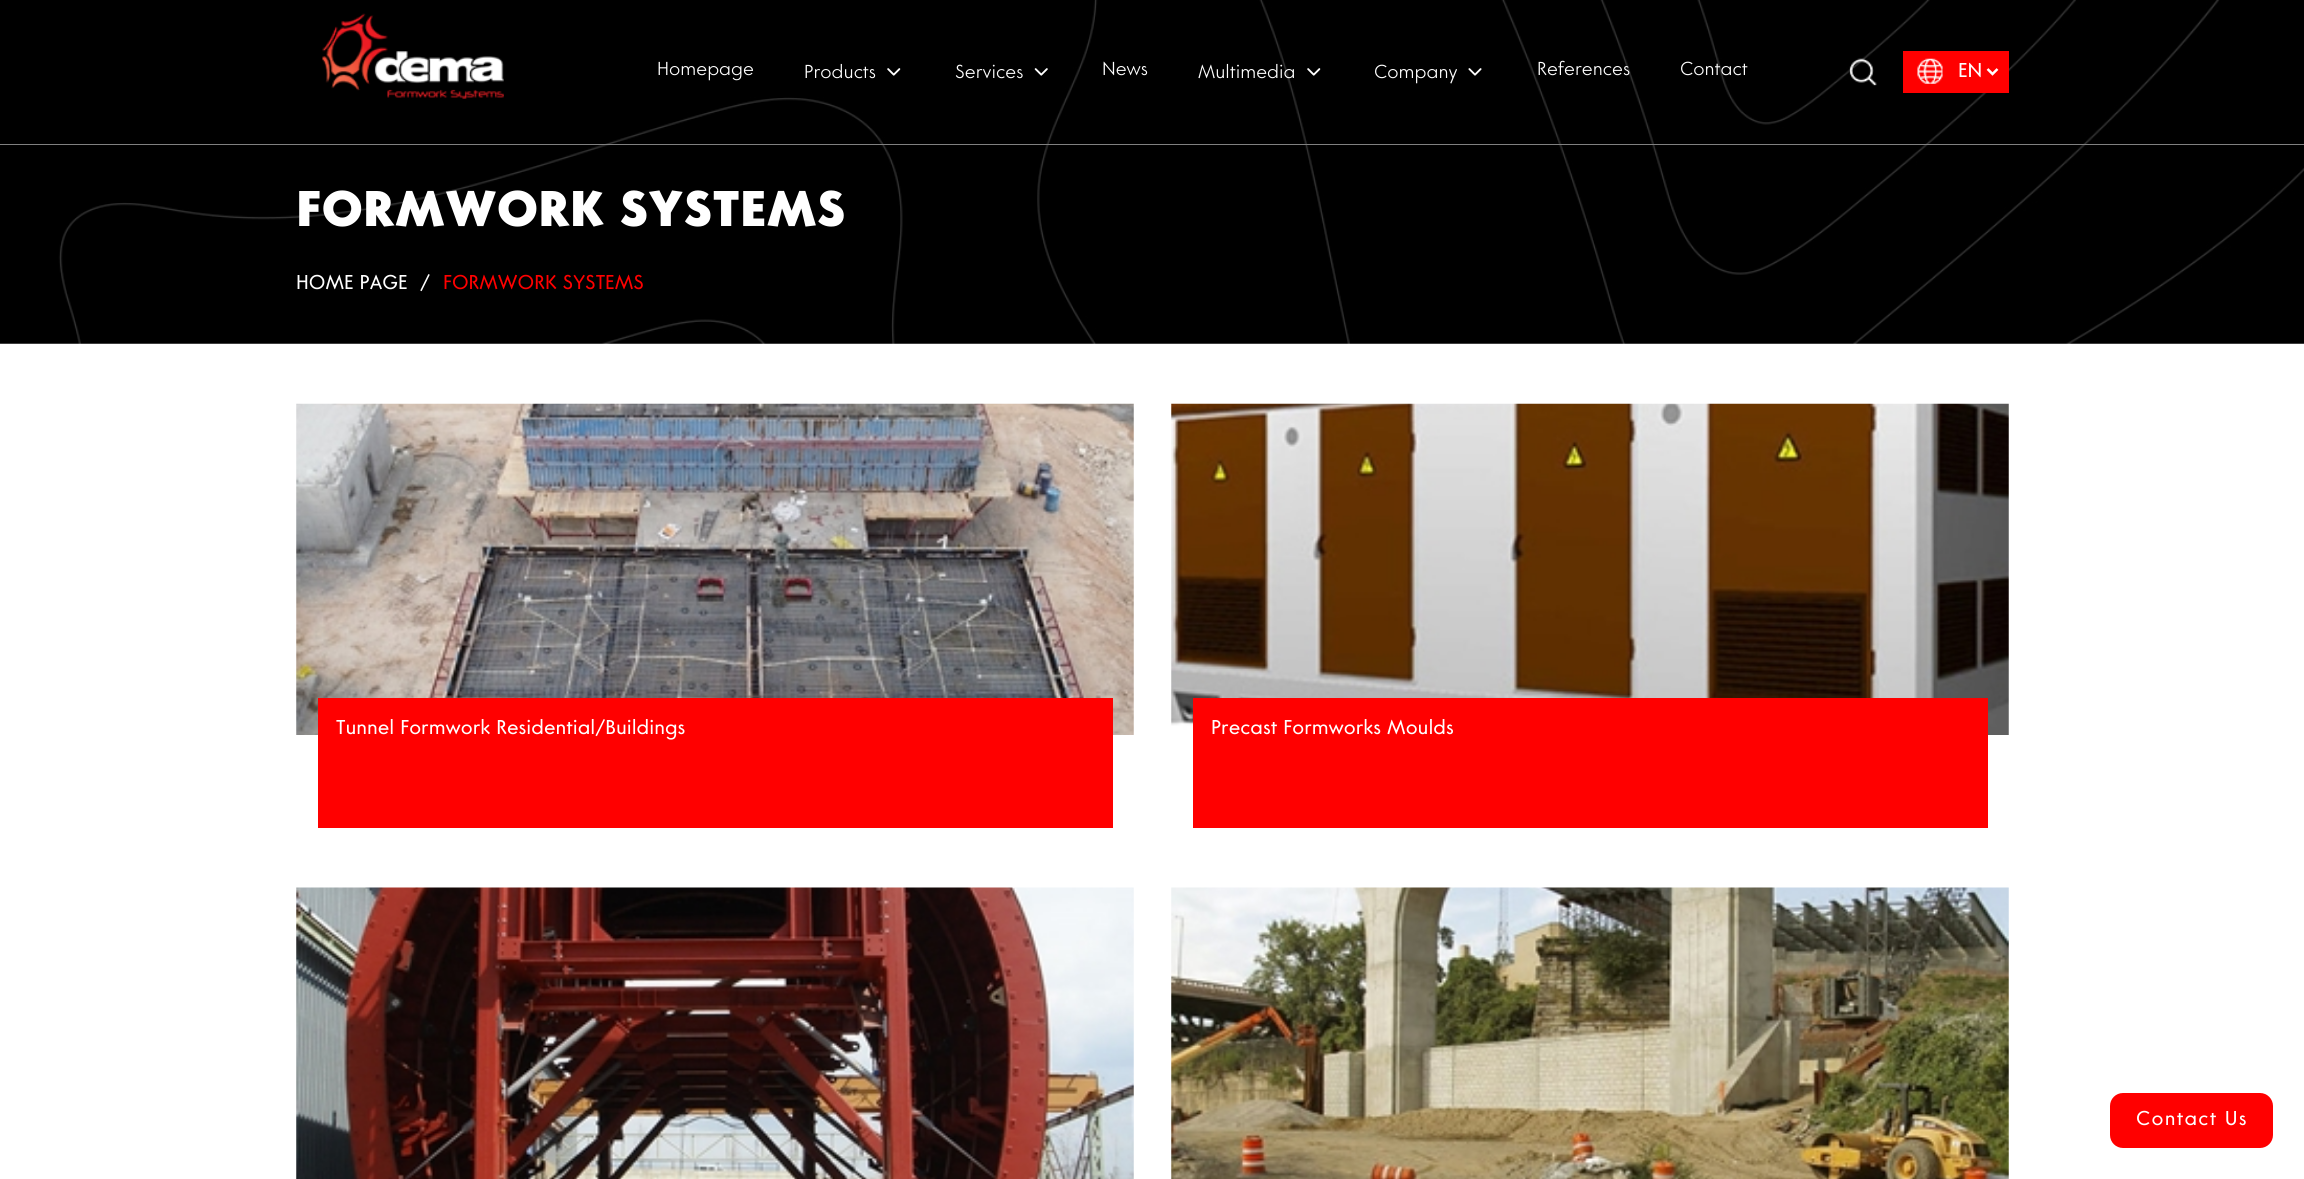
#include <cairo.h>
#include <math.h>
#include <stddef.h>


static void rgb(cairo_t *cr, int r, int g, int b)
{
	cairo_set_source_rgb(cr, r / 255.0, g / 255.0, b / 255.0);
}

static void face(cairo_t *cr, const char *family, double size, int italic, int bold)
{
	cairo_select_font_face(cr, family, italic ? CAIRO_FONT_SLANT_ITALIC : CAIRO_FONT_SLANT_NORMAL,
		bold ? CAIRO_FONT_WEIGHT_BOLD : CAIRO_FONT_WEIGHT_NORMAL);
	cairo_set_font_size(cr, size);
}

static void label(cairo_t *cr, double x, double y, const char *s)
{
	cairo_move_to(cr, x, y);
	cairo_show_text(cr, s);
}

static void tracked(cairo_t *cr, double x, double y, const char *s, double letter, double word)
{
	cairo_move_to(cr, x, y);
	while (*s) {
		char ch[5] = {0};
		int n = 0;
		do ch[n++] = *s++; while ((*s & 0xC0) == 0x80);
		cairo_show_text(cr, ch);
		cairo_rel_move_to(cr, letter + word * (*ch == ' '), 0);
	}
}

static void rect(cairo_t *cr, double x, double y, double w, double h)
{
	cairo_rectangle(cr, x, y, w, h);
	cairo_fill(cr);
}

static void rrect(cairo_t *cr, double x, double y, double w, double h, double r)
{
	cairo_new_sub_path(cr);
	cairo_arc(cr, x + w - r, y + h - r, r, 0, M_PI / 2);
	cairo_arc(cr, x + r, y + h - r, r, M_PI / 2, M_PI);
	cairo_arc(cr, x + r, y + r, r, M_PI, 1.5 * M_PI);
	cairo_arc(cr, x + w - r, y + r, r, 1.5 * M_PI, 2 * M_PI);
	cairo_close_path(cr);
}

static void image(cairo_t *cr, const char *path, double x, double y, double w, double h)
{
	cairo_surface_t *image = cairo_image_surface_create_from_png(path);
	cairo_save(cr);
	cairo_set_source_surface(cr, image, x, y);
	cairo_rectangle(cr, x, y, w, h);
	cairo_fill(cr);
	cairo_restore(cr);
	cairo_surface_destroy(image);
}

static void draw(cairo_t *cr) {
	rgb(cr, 255, 255, 255);
	cairo_paint(cr);
	image(cr, "image6.png", 0, 0, 2304, 344);
	rgb(cr, 128, 128, 128);
	rect(cr, 0, 144, 2304, 1);
	image(cr, "image0.png", 322, 13, 182, 86);
	face(cr, "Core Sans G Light", 18.75, 0, 0);
	rgb(cr, 255, 255, 255);
	label(cr, 657, 75, "Homepage");
	label(cr, 804, 78, "Products");
	image(cr, "image1.png", 887, 68, 14, 8);
	label(cr, 955, 78, "Services");
	image(cr, "image2.png", 1034, 68, 14, 8);
	label(cr, 1102, 75, "News");
	label(cr, 1198, 78, "Multimedia");
	image(cr, "image1.png", 1307, 68, 14, 8);
	label(cr, 1374, 78, "Company");
	image(cr, "image3.png", 1468, 68, 14, 8);
	label(cr, 1537, 75, "References");
	label(cr, 1680, 75, "Contact");
	image(cr, "image4.png", 1849, 58, 28, 28);
	rgb(cr, 255, 0, 0);
	rect(cr, 1903, 51, 106, 42);
	image(cr, "image5.png", 1917, 58, 26, 26);
	cairo_new_path(cr);
	cairo_move_to(cr, 1987.5, 69);
	cairo_line_to(cr, 1992.5, 74);
	cairo_line_to(cr, 1997.5, 69);
	rgb(cr, 255, 255, 255);
	cairo_set_line_width(cr, 2.5);
	cairo_stroke(cr);
	face(cr, "Core Sans G", 20, 0, 0);
	label(cr, 1958, 77, "EN");
	face(cr, "Core Sans G Black", 50, 0, 0);
	label(cr, 296, 226, "FORMWORK SYSTEMS");
	face(cr, "Core Sans G", 20, 0, 0);
	label(cr, 296, 289, "HOME PAGE");
	label(cr, 420, 289, "/");
	rgb(cr, 255, 0, 0);
	label(cr, 443, 289, "FORMWORK SYSTEMS");
	image(cr, "image7.png", 296, 403, 838, 332);
	rect(cr, 318, 698, 795, 130);
	rgb(cr, 255, 255, 255);
	label(cr, 336, 734, "Tunnel Formwork Residential/Buildings");
	image(cr, "image8.png", 1171, 403, 838, 332);
	rgb(cr, 255, 0, 0);
	rect(cr, 1193, 698, 795, 130);
	rgb(cr, 255, 255, 255);
	label(cr, 1211, 734, "Precast Formworks Moulds");
	image(cr, "image9.png", 296, 887, 838, 292);
	image(cr, "image10.png", 1171, 887, 838, 292);
	rgb(cr, 255, 0, 0);
	rrect(cr, 2110, 1093, 163, 55, 13);
	cairo_fill(cr);
	rgb(cr, 255, 255, 255);
	tracked(cr, 2136, 1125, "Contact Us", 1.25, 0);
}

int main(void) {
	cairo_surface_t *surface = cairo_image_surface_create(CAIRO_FORMAT_RGB24, 2304, 1179);
	cairo_t *cr = cairo_create(surface);
	cairo_font_options_t *options = cairo_font_options_create();
	cairo_font_options_set_hint_metrics(options, CAIRO_HINT_METRICS_OFF);
	cairo_font_options_set_hint_style(options, CAIRO_HINT_STYLE_NONE);
	cairo_set_font_options(cr, options);
	cairo_set_miter_limit(cr, 4);
	draw(cr);
	cairo_surface_write_to_png(surface, "render.png");
	cairo_font_options_destroy(options);
	cairo_destroy(cr);
	cairo_surface_destroy(surface);
	return 0;
}
